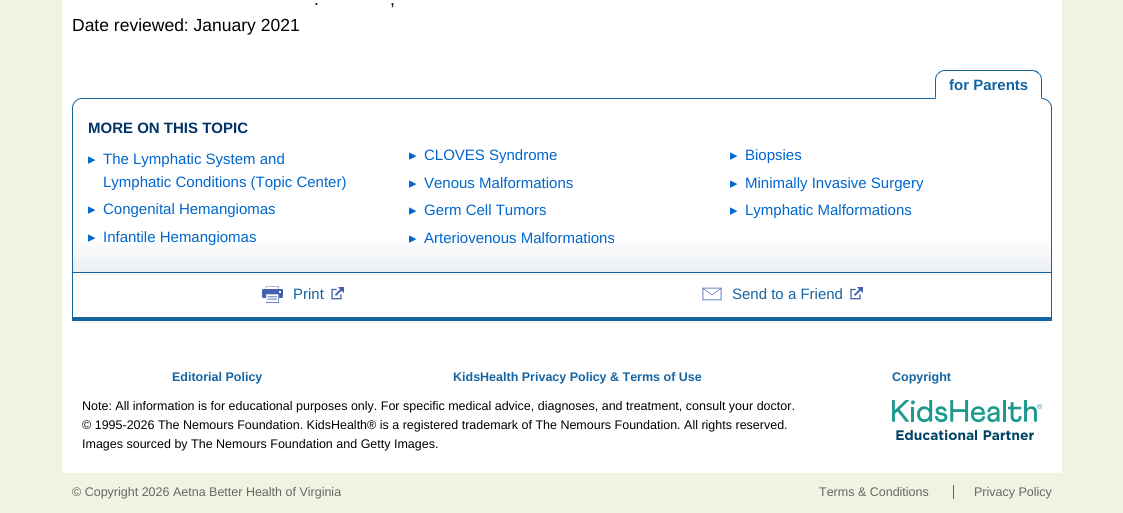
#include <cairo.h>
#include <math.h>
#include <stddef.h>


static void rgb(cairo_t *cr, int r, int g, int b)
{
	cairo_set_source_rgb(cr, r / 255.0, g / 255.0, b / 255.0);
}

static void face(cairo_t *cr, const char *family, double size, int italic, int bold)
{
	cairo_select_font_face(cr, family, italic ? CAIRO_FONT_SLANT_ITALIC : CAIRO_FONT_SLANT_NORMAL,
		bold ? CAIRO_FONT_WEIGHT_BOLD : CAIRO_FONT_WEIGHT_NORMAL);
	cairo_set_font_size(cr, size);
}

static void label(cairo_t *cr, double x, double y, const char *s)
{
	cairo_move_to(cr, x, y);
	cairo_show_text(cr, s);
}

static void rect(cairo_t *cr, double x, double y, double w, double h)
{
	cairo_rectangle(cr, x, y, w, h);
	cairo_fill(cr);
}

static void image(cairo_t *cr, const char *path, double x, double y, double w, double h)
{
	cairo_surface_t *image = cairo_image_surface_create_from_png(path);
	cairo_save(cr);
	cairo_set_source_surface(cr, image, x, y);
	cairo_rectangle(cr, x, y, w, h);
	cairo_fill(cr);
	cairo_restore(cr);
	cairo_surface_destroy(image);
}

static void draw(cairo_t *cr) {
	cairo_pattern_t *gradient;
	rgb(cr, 241, 242, 226);
	cairo_paint(cr);
	rgb(cr, 255, 255, 255);
	rect(cr, 62, 0, 1000, 473);
	face(cr, "Liberation Sans", 17.5, 0, 0);
	rgb(cr, 0, 0, 0);
	label(cr, 314, 5, ".");
	label(cr, 390, 5, ",");
	label(cr, 72, 31, "Date reviewed: January 2021");
	rgb(cr, 21, 100, 162);
	cairo_new_path(cr);
	cairo_move_to(cr, 945, 70);
	cairo_curve_to(cr, 942, 70, 940, 71, 938, 73);
	cairo_line_to(cr, 939, 74);
	cairo_curve_to(cr, 940, 72, 942, 71, 945, 71);
	cairo_line_to(cr, 1032, 71);
	cairo_curve_to(cr, 1034, 71, 1037, 72, 1038, 74);
	cairo_line_to(cr, 1039, 73);
	cairo_curve_to(cr, 1038, 71, 1035, 70, 1032, 70);
	cairo_close_path(cr);
	cairo_fill(cr);
	cairo_save(cr);
	cairo_new_path(cr);
	cairo_move_to(cr, 82, 98);
	cairo_line_to(cr, 1042, 98);
	cairo_curve_to(cr, 1047.5, 98, 1052, 102.5, 1052, 108);
	cairo_line_to(cr, 1052, 273);
	cairo_line_to(cr, 72, 273);
	cairo_line_to(cr, 72, 108);
	cairo_curve_to(cr, 72, 102.5, 76.5, 98, 82, 98);
	cairo_close_path(cr);
	cairo_clip(cr);
	gradient = cairo_pattern_create_linear(562, 272, 562, 99);
	cairo_pattern_add_color_stop_rgba(gradient, 0, 0.922, 0.937, 0.953, 1);
	cairo_pattern_add_color_stop_rgba(gradient, 0.21, 1, 1, 1, 1);
	cairo_set_source(cr, gradient);
	cairo_pattern_destroy(gradient);
	rect(cr, 72, 99, 980, 173);
	cairo_restore(cr);
	cairo_new_path(cr);
	cairo_move_to(cr, 82, 98.5);
	cairo_line_to(cr, 1042, 98.5);
	cairo_curve_to(cr, 1047, 98.5, 1051.5, 103, 1051.5, 108);
	cairo_line_to(cr, 1051.5, 272.5);
	cairo_line_to(cr, 72.5, 272.5);
	cairo_line_to(cr, 72.5, 108);
	cairo_curve_to(cr, 72.5, 103, 77, 98.5, 82, 98.5);
	cairo_close_path(cr);
	cairo_set_line_width(cr, 1);
	cairo_stroke(cr);
	cairo_new_path(cr);
	cairo_move_to(cr, 1042, 100);
	cairo_line_to(cr, 1042, 80);
	cairo_curve_to(cr, 1042, 77, 1041, 74.5, 1039, 73);
	cairo_line_to(cr, 1038.5, 73.5);
	cairo_curve_to(cr, 1040, 75, 1041, 77.5, 1041, 80);
	cairo_line_to(cr, 1041, 97);
	cairo_close_path(cr);
	cairo_fill(cr);
	rgb(cr, 255, 255, 255);
	cairo_new_path(cr);
	cairo_move_to(cr, 1042, 100);
	cairo_line_to(cr, 1041, 97);
	cairo_line_to(cr, 936, 97);
	cairo_line_to(cr, 935, 100);
	cairo_close_path(cr);
	cairo_fill(cr);
	rgb(cr, 21, 100, 162);
	cairo_new_path(cr);
	cairo_move_to(cr, 935, 100);
	cairo_line_to(cr, 936, 97);
	cairo_line_to(cr, 936, 80);
	cairo_curve_to(cr, 936, 77.5, 937, 75, 938.5, 73.5);
	cairo_line_to(cr, 938, 73);
	cairo_curve_to(cr, 936, 74.5, 935, 77, 935, 80);
	cairo_close_path(cr);
	cairo_fill(cr);
	face(cr, "Liberation Sans", 15, 0, 1);
	label(cr, 949, 90, "for Parents");
	rgb(cr, 0, 51, 102);
	label(cr, 88, 133, "MORE ON THIS TOPIC");
	face(cr, "DejaVu Sans", 15, 0, 0);
	rgb(cr, 0, 102, 204);
	label(cr, 88, 164, "▸");
	face(cr, "Liberation Sans", 15, 0, 0);
	label(cr, 103, 164, "The Lymphatic System and");
	label(cr, 103, 187, "Lymphatic Conditions (Topic Center)");
	face(cr, "DejaVu Sans", 15, 0, 0);
	label(cr, 409, 160, "▸");
	face(cr, "Liberation Sans", 15, 0, 0);
	label(cr, 424, 160, "CLOVES Syndrome");
	face(cr, "DejaVu Sans", 15, 0, 0);
	label(cr, 730, 160, "▸");
	face(cr, "Liberation Sans", 15, 0, 0);
	label(cr, 745, 160, "Biopsies");
	face(cr, "DejaVu Sans", 15, 0, 0);
	label(cr, 409, 188, "▸");
	face(cr, "Liberation Sans", 15, 0, 0);
	label(cr, 424, 188, "Venous Malformations");
	face(cr, "DejaVu Sans", 15, 0, 0);
	label(cr, 730, 188, "▸");
	face(cr, "Liberation Sans", 15, 0, 0);
	label(cr, 745, 188, "Minimally Invasive Surgery");
	face(cr, "DejaVu Sans", 15, 0, 0);
	label(cr, 88, 214, "▸");
	face(cr, "Liberation Sans", 15, 0, 0);
	label(cr, 103, 214, "Congenital Hemangiomas");
	face(cr, "DejaVu Sans", 15, 0, 0);
	label(cr, 409, 215, "▸");
	face(cr, "Liberation Sans", 15, 0, 0);
	label(cr, 424, 215, "Germ Cell Tumors");
	face(cr, "DejaVu Sans", 15, 0, 0);
	label(cr, 730, 215, "▸");
	face(cr, "Liberation Sans", 15, 0, 0);
	label(cr, 745, 215, "Lymphatic Malformations");
	face(cr, "DejaVu Sans", 15, 0, 0);
	label(cr, 88, 242, "▸");
	face(cr, "Liberation Sans", 15, 0, 0);
	label(cr, 103, 242, "Infantile Hemangiomas");
	face(cr, "DejaVu Sans", 15, 0, 0);
	label(cr, 409, 243, "▸");
	face(cr, "Liberation Sans", 15, 0, 0);
	label(cr, 424, 243, "Arteriovenous Malformations");
	rgb(cr, 21, 100, 162);
	rect(cr, 1051, 273, 1, 48);
	rect(cr, 72, 317, 980, 4);
	rect(cr, 72, 273, 1, 48);
	image(cr, "image0.png", 262, 286, 21, 17);
	label(cr, 293, 299, "Print");
	image(cr, "image1.png", 331, 287, 13, 13);
	image(cr, "image2.png", 702, 287, 20, 14);
	label(cr, 732, 299, "Send to a Friend");
	image(cr, "image1.png", 850, 287, 13, 13);
	face(cr, "Liberation Sans", 12.5, 0, 1);
	label(cr, 172, 381, "Editorial Policy");
	label(cr, 453, 381, "KidsHealth Privacy Policy & Terms of Use");
	label(cr, 892, 381, "Copyright");
	face(cr, "Liberation Sans", 12.5, 0, 0);
	rgb(cr, 0, 0, 0);
	label(cr, 82, 410, "Note: All information is for educational purposes only. For specific medical advice, diagnoses, and treatment, consult your doctor.");
	image(cr, "image3.png", 892, 400, 150, 40);
	label(cr, 82, 429, "© 1995-2026 The Nemours Foundation. KidsHealth® is a registered trademark of The Nemours Foundation. All rights reserved.");
	label(cr, 82, 448, "Images sourced by The Nemours Foundation and Getty Images.");
	rgb(cr, 102, 102, 102);
	label(cr, 72, 496, "© Copyright 2026 Aetna Better Health of Virginia");
	label(cr, 819, 496, "Terms & Conditions");
	label(cr, 974, 496, "Privacy Policy");
	rect(cr, 953, 485, 1, 14);
}

int main(void) {
	cairo_surface_t *surface = cairo_image_surface_create(CAIRO_FORMAT_RGB24, 1123, 513);
	cairo_t *cr = cairo_create(surface);
	cairo_font_options_t *options = cairo_font_options_create();
	cairo_font_options_set_hint_metrics(options, CAIRO_HINT_METRICS_OFF);
	cairo_font_options_set_hint_style(options, CAIRO_HINT_STYLE_NONE);
	cairo_set_font_options(cr, options);
	cairo_set_miter_limit(cr, 4);
	draw(cr);
	cairo_surface_write_to_png(surface, "render.png");
	cairo_font_options_destroy(options);
	cairo_destroy(cr);
	cairo_surface_destroy(surface);
	return 0;
}
